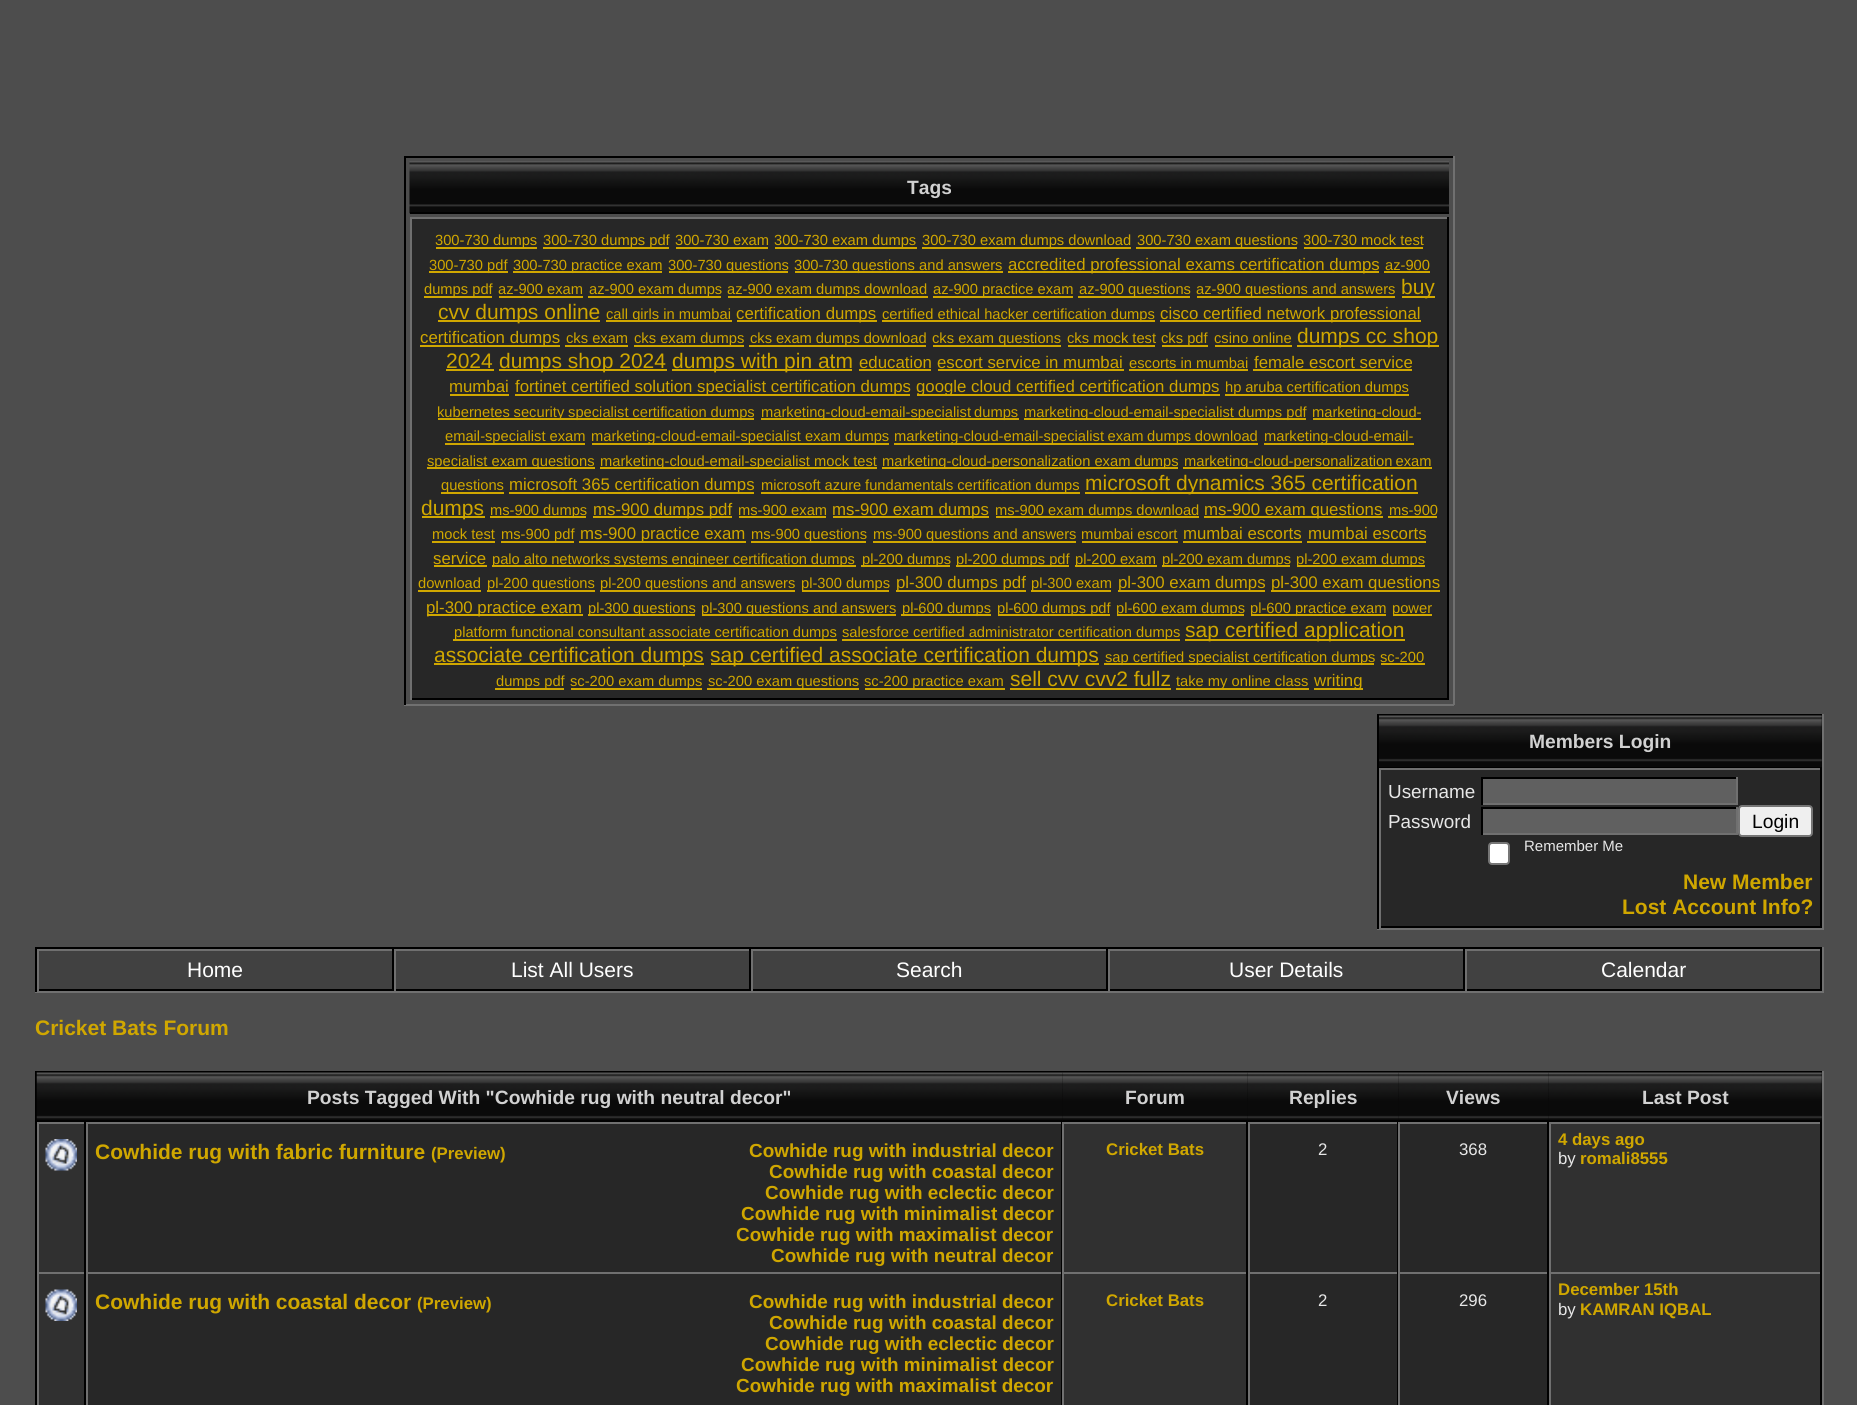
#include <cairo.h>
#include <math.h>
#include <stddef.h>


static void rgb(cairo_t *cr, int r, int g, int b)
{
	cairo_set_source_rgb(cr, r / 255.0, g / 255.0, b / 255.0);
}

static void face(cairo_t *cr, const char *family, double size, int italic, int bold)
{
	cairo_select_font_face(cr, family, italic ? CAIRO_FONT_SLANT_ITALIC : CAIRO_FONT_SLANT_NORMAL,
		bold ? CAIRO_FONT_WEIGHT_BOLD : CAIRO_FONT_WEIGHT_NORMAL);
	cairo_set_font_size(cr, size);
}

static void label(cairo_t *cr, double x, double y, const char *s)
{
	cairo_move_to(cr, x, y);
	cairo_show_text(cr, s);
}

static void tracked(cairo_t *cr, double x, double y, const char *s, double letter, double word)
{
	cairo_move_to(cr, x, y);
	while (*s) {
		char ch[5] = {0};
		int n = 0;
		do ch[n++] = *s++; while ((*s & 0xC0) == 0x80);
		cairo_show_text(cr, ch);
		cairo_rel_move_to(cr, letter + word * (*ch == ' '), 0);
	}
}

static void rect(cairo_t *cr, double x, double y, double w, double h)
{
	cairo_rectangle(cr, x, y, w, h);
	cairo_fill(cr);
}

static void rrect(cairo_t *cr, double x, double y, double w, double h, double r)
{
	cairo_new_sub_path(cr);
	cairo_arc(cr, x + w - r, y + h - r, r, 0, M_PI / 2);
	cairo_arc(cr, x + r, y + h - r, r, M_PI / 2, M_PI);
	cairo_arc(cr, x + r, y + r, r, M_PI, 1.5 * M_PI);
	cairo_arc(cr, x + w - r, y + r, r, 1.5 * M_PI, 2 * M_PI);
	cairo_close_path(cr);
}

static void image(cairo_t *cr, const char *path, double x, double y, double w, double h)
{
	cairo_surface_t *image = cairo_image_surface_create_from_png(path);
	cairo_save(cr);
	cairo_set_source_surface(cr, image, x, y);
	cairo_rectangle(cr, x, y, w, h);
	cairo_fill(cr);
	cairo_restore(cr);
	cairo_surface_destroy(image);
}

static void draw(cairo_t *cr) {
	rgb(cr, 77, 77, 77);
	cairo_paint(cr);
	rgb(cr, 0, 0, 0);
	rect(cr, 404, 156, 1050, 2);
	rgb(cr, 112, 112, 112);
	rect(cr, 1453, 156, 2, 549);
	rect(cr, 404, 704, 1050, 2);
	rgb(cr, 0, 0, 0);
	rect(cr, 404, 156, 2, 549);
	image(cr, "image0.png", 409, 161, 1040, 53);
	rgb(cr, 1, 1, 1);
	rect(cr, 410, 212, 1039, 2);
	face(cr, "Liberation Sans", 19.25, 0, 1);
	rgb(cr, 209, 209, 209);
	label(cr, 907, 194, "Tags");
	rgb(cr, 39, 39, 39);
	rect(cr, 412, 219, 1035, 479);
	rgb(cr, 112, 112, 112);
	rect(cr, 410, 217, 1039, 2);
	rgb(cr, 0, 0, 0);
	rect(cr, 1447, 217, 2, 483);
	rect(cr, 410, 698, 1039, 2);
	rgb(cr, 112, 112, 112);
	rect(cr, 410, 217, 2, 483);
	rgb(cr, 208, 167, 0);
	rect(cr, 436, 247, 101, 2);
	face(cr, "Liberation Sans", 14.7, 0, 0);
	label(cr, 435, 245, "300-730 dumps");
	rect(cr, 543, 247, 126, 2);
	label(cr, 543, 245, "300-730 dumps pdf");
	label(cr, 675, 245, "300-730 exam");
	rect(cr, 676, 247, 92, 2);
	rect(cr, 775, 247, 142, 2);
	label(cr, 774, 245, "300-730 exam dumps");
	rect(cr, 922, 247, 209, 2);
	label(cr, 922, 245, "300-730 exam dumps download");
	rect(cr, 1136, 247, 161, 2);
	label(cr, 1137, 245, "300-730 exam questions");
	label(cr, 1303, 245, "300-730 mock test");
	rect(cr, 1304, 247, 119, 2);
	rect(cr, 429, 271, 79, 2);
	label(cr, 429, 270, "300-730 pdf");
	rect(cr, 513, 271, 149, 2);
	label(cr, 513, 270, "300-730 practice exam");
	rect(cr, 669, 271, 119, 2);
	label(cr, 668, 270, "300-730 questions");
	rect(cr, 795, 271, 208, 2);
	label(cr, 794, 270, "300-730 questions and answers");
	rect(cr, 1008, 271, 371, 2);
	face(cr, "Liberation Sans", 16.8, 0, 0);
	label(cr, 1008, 270, "accredited professional exams certification dumps");
	face(cr, "Liberation Sans", 14.7, 0, 0);
	label(cr, 1385, 270, "az-900");
	rect(cr, 1384, 271, 46, 2);
	rect(cr, 424, 296, 68, 2);
	label(cr, 424, 294, "dumps pdf");
	label(cr, 498, 294, "az-900 exam");
	rect(cr, 499, 296, 84, 2);
	rect(cr, 588, 296, 133, 2);
	label(cr, 589, 294, "az-900 exam dumps");
	rect(cr, 728, 296, 200, 2);
	label(cr, 727, 294, "az-900 exam dumps download");
	rect(cr, 933, 296, 140, 2);
	label(cr, 933, 294, "az-900 practice exam");
	rect(cr, 1078, 296, 112, 2);
	label(cr, 1079, 294, "az-900 questions");
	rect(cr, 1197, 296, 198, 2);
	label(cr, 1196, 294, "az-900 questions and answers");
	rect(cr, 1402, 296, 33, 2);
	face(cr, "Liberation Sans", 21, 0, 0);
	label(cr, 1401, 294, "buy");
	rect(cr, 438, 320, 162, 2);
	label(cr, 438, 319, "cvv dumps online");
	rect(cr, 606, 320, 126, 2);
	face(cr, "Liberation Sans", 14.7, 0, 0);
	label(cr, 606, 319, "call girls in mumbai");
	rect(cr, 737, 320, 140, 2);
	face(cr, "Liberation Sans", 16.8, 0, 0);
	label(cr, 736, 319, "certification dumps");
	rect(cr, 882, 320, 273, 2);
	face(cr, "Liberation Sans", 14.7, 0, 0);
	label(cr, 882, 319, "certified ethical hacker certification dumps");
	rect(cr, 1160, 320, 261, 2);
	face(cr, "Liberation Sans", 16.8, 0, 0);
	label(cr, 1160, 319, "cisco certified network professional");
	rect(cr, 420, 345, 140, 2);
	label(cr, 420, 343, "certification dumps");
	face(cr, "Liberation Sans", 14.7, 0, 0);
	label(cr, 566, 343, "cks exam");
	rect(cr, 565, 345, 63, 2);
	rect(cr, 634, 345, 110, 2);
	label(cr, 634, 343, "cks exam dumps");
	rect(cr, 749, 345, 177, 2);
	tracked(cr, 750, 343, "cks exam dumps download", 0, -0.25);
	rect(cr, 933, 345, 128, 2);
	label(cr, 932, 343, "cks exam questions");
	label(cr, 1067, 343, "cks mock test");
	rect(cr, 1068, 345, 87, 2);
	rect(cr, 1162, 345, 46, 2);
	label(cr, 1161, 343, "cks pdf");
	label(cr, 1214, 343, "csino online");
	rect(cr, 1215, 345, 77, 2);
	rect(cr, 1297, 345, 142, 2);
	face(cr, "Liberation Sans", 21, 0, 0);
	label(cr, 1297, 343, "dumps cc shop");
	label(cr, 446, 368, "2024");
	rect(cr, 446, 369, 48, 2);
	rect(cr, 499, 369, 168, 2);
	label(cr, 499, 368, "dumps shop 2024");
	rect(cr, 672, 369, 180, 2);
	label(cr, 672, 368, "dumps with pin atm");
	face(cr, "Liberation Sans", 16.8, 0, 0);
	label(cr, 859, 368, "education");
	rect(cr, 859, 369, 72, 2);
	label(cr, 937, 368, "escort service in mumbai");
	rect(cr, 938, 369, 186, 2);
	face(cr, "Liberation Sans", 14.7, 0, 0);
	label(cr, 1129, 368, "escorts in mumbai");
	rect(cr, 1129, 369, 119, 2);
	face(cr, "Liberation Sans", 16.8, 0, 0);
	label(cr, 1254, 368, "female escort service");
	rect(cr, 1253, 369, 159, 2);
	label(cr, 449, 392, "mumbai");
	rect(cr, 450, 394, 59, 2);
	rect(cr, 515, 394, 395, 2);
	label(cr, 515, 392, "fortinet certified solution specialist certification dumps");
	rect(cr, 917, 394, 303, 2);
	label(cr, 916, 392, "google cloud certified certification dumps");
	rect(cr, 1225, 394, 184, 2);
	face(cr, "Liberation Sans", 14.7, 0, 0);
	tracked(cr, 1225, 392, "hp aruba certification dumps", 0, -0.25);
	rect(cr, 438, 418, 316, 2);
	tracked(cr, 437, 417, "kubernetes security specialist certification dumps", 0, -0.25);
	rect(cr, 761, 418, 258, 2);
	tracked(cr, 761, 417, "marketing-cloud-email-specialist dumps", 0, -1);
	rect(cr, 1024, 418, 282, 2);
	label(cr, 1024, 417, "marketing-cloud-email-specialist dumps pdf");
	rect(cr, 1313, 418, 108, 2);
	label(cr, 1312, 417, "marketing-cloud-");
	rect(cr, 445, 443, 140, 2);
	label(cr, 445, 441, "email-specialist exam");
	rect(cr, 592, 443, 297, 2);
	label(cr, 591, 441, "marketing-cloud-email-specialist exam dumps");
	rect(cr, 894, 443, 364, 2);
	tracked(cr, 894, 441, "marketing-cloud-email-specialist exam dumps download", 0, -0.5);
	rect(cr, 1264, 443, 150, 2);
	label(cr, 1264, 441, "marketing-cloud-email-");
	rect(cr, 427, 467, 168, 2);
	label(cr, 427, 466, "specialist exam questions");
	rect(cr, 600, 467, 277, 2);
	label(cr, 600, 466, "marketing-cloud-email-specialist mock test");
	rect(cr, 882, 467, 296, 2);
	label(cr, 882, 466, "marketing-cloud-personalization exam dumps");
	rect(cr, 1183, 467, 249, 2);
	tracked(cr, 1184, 466, "marketing-cloud-personalization exam", 0, -1);
	rect(cr, 441, 492, 63, 2);
	label(cr, 441, 490, "questions");
	rect(cr, 509, 492, 245, 2);
	face(cr, "Liberation Sans", 16.8, 0, 0);
	label(cr, 509, 490, "microsoft 365 certification dumps");
	rect(cr, 761, 492, 319, 2);
	face(cr, "Liberation Sans", 14.7, 0, 0);
	tracked(cr, 761, 490, "microsoft azure fundamentals certification dumps", 0, -0.25);
	rect(cr, 1085, 492, 333, 2);
	face(cr, "Liberation Sans", 21, 0, 0);
	label(cr, 1085, 490, "microsoft dynamics 365 certification");
	rect(cr, 422, 516, 63, 2);
	label(cr, 421, 515, "dumps");
	rect(cr, 490, 516, 96, 2);
	face(cr, "Liberation Sans", 14.7, 0, 0);
	label(cr, 490, 515, "ms-900 dumps");
	rect(cr, 593, 516, 139, 2);
	face(cr, "Liberation Sans", 16.8, 0, 0);
	label(cr, 593, 515, "ms-900 dumps pdf");
	face(cr, "Liberation Sans", 14.7, 0, 0);
	label(cr, 738, 515, "ms-900 exam");
	rect(cr, 739, 516, 87, 2);
	rect(cr, 833, 516, 156, 2);
	face(cr, "Liberation Sans", 16.8, 0, 0);
	label(cr, 832, 515, "ms-900 exam dumps");
	rect(cr, 996, 516, 203, 2);
	face(cr, "Liberation Sans", 14.7, 0, 0);
	label(cr, 995, 515, "ms-900 exam dumps download");
	rect(cr, 1204, 516, 179, 2);
	face(cr, "Liberation Sans", 16.8, 0, 0);
	label(cr, 1204, 515, "ms-900 exam questions");
	face(cr, "Liberation Sans", 14.7, 0, 0);
	label(cr, 1389, 515, "ms-900");
	rect(cr, 1388, 516, 49, 2);
	label(cr, 432, 539, "mock test");
	rect(cr, 432, 541, 63, 2);
	rect(cr, 501, 541, 73, 2);
	label(cr, 501, 539, "ms-900 pdf");
	rect(cr, 579, 541, 167, 2);
	face(cr, "Liberation Sans", 16.8, 0, 0);
	label(cr, 580, 539, "ms-900 practice exam");
	rect(cr, 751, 541, 115, 2);
	face(cr, "Liberation Sans", 14.7, 0, 0);
	label(cr, 751, 539, "ms-900 questions");
	rect(cr, 873, 541, 203, 2);
	label(cr, 873, 539, "ms-900 questions and answers");
	label(cr, 1081, 539, "mumbai escort");
	rect(cr, 1082, 541, 96, 2);
	face(cr, "Liberation Sans", 16.8, 0, 0);
	label(cr, 1183, 539, "mumbai escorts");
	rect(cr, 1183, 541, 119, 2);
	label(cr, 1308, 539, "mumbai escorts");
	rect(cr, 1307, 541, 119, 2);
	label(cr, 433, 564, "service");
	rect(cr, 434, 565, 53, 2);
	rect(cr, 492, 565, 364, 2);
	face(cr, "Liberation Sans", 14.7, 0, 0);
	tracked(cr, 492, 564, "palo alto networks systems engineer certification dumps", 0, -0.25);
	rect(cr, 861, 565, 89, 2);
	label(cr, 862, 564, "pl-200 dumps");
	rect(cr, 956, 565, 113, 2);
	label(cr, 956, 564, "pl-200 dumps pdf");
	rect(cr, 1075, 565, 82, 2);
	label(cr, 1075, 564, "pl-200 exam");
	rect(cr, 1162, 565, 128, 2);
	label(cr, 1162, 564, "pl-200 exam dumps");
	rect(cr, 1297, 565, 128, 2);
	label(cr, 1296, 564, "pl-200 exam dumps");
	label(cr, 418, 588, "download");
	rect(cr, 418, 590, 63, 2);
	rect(cr, 487, 590, 108, 2);
	label(cr, 487, 588, "pl-200 questions");
	rect(cr, 600, 590, 195, 2);
	label(cr, 600, 588, "pl-200 questions and answers");
	rect(cr, 802, 590, 87, 2);
	label(cr, 801, 588, "pl-300 dumps");
	rect(cr, 896, 590, 130, 2);
	face(cr, "Liberation Sans", 16.8, 0, 0);
	label(cr, 896, 588, "pl-300 dumps pdf");
	rect(cr, 1031, 590, 80, 2);
	face(cr, "Liberation Sans", 14.7, 0, 0);
	label(cr, 1031, 588, "pl-300 exam");
	rect(cr, 1118, 590, 147, 2);
	face(cr, "Liberation Sans", 16.8, 0, 0);
	label(cr, 1118, 588, "pl-300 exam dumps");
	rect(cr, 1271, 590, 169, 2);
	label(cr, 1271, 588, "pl-300 exam questions");
	rect(cr, 427, 614, 156, 2);
	label(cr, 426, 613, "pl-300 practice exam");
	rect(cr, 588, 614, 107, 2);
	face(cr, "Liberation Sans", 14.7, 0, 0);
	label(cr, 588, 613, "pl-300 questions");
	rect(cr, 702, 614, 194, 2);
	label(cr, 701, 613, "pl-300 questions and answers");
	rect(cr, 901, 614, 90, 2);
	label(cr, 902, 613, "pl-600 dumps");
	rect(cr, 998, 614, 112, 2);
	label(cr, 997, 613, "pl-600 dumps pdf");
	rect(cr, 1117, 614, 127, 2);
	label(cr, 1116, 613, "pl-600 exam dumps");
	rect(cr, 1251, 614, 135, 2);
	label(cr, 1250, 613, "pl-600 practice exam");
	rect(cr, 1393, 614, 39, 2);
	label(cr, 1392, 613, "power");
	rect(cr, 453, 639, 384, 2);
	tracked(cr, 454, 637, "platform functional consultant associate certification dumps", 0, -0.25);
	rect(cr, 842, 639, 338, 2);
	label(cr, 842, 637, "salesforce certified administrator certification dumps");
	rect(cr, 1185, 639, 220, 2);
	face(cr, "Liberation Sans", 21, 0, 0);
	label(cr, 1185, 637, "sap certified application");
	rect(cr, 434, 663, 270, 2);
	label(cr, 434, 662, "associate certification dumps");
	rect(cr, 711, 663, 388, 2);
	label(cr, 710, 662, "sap certified associate certification dumps");
	rect(cr, 1104, 663, 270, 2);
	face(cr, "Liberation Sans", 14.7, 0, 0);
	label(cr, 1105, 662, "sap certified specialist certification dumps");
	label(cr, 1380, 662, "sc-200");
	rect(cr, 1381, 663, 44, 2);
	rect(cr, 495, 688, 69, 2);
	label(cr, 496, 686, "dumps pdf");
	rect(cr, 571, 688, 131, 2);
	label(cr, 570, 686, "sc-200 exam dumps");
	rect(cr, 707, 688, 152, 2);
	label(cr, 708, 686, "sc-200 exam questions");
	rect(cr, 865, 688, 140, 2);
	label(cr, 864, 686, "sc-200 practice exam");
	face(cr, "Liberation Sans", 21, 0, 0);
	label(cr, 1010, 686, "sell cvv cvv2 fullz");
	rect(cr, 1010, 688, 161, 2);
	rect(cr, 1176, 688, 133, 2);
	face(cr, "Liberation Sans", 14.7, 0, 0);
	label(cr, 1176, 686, "take my online class");
	rect(cr, 1314, 688, 49, 2);
	face(cr, "Liberation Sans", 16.8, 0, 0);
	label(cr, 1314, 686, "writing");
	rgb(cr, 0, 0, 0);
	rect(cr, 1379, 714, 443, 53);
	rgb(cr, 112, 112, 112);
	rect(cr, 1822, 714, 2, 215);
	rect(cr, 1377, 928, 447, 2);
	rgb(cr, 0, 0, 0);
	rect(cr, 1377, 714, 2, 215);
	image(cr, "image1.png", 1379, 715, 443, 52);
	rgb(cr, 1, 1, 1);
	rect(cr, 1379, 767, 443, 1);
	face(cr, "Liberation Sans", 19.25, 0, 1);
	rgb(cr, 209, 209, 209);
	label(cr, 1529, 748, "Members Login");
	rgb(cr, 39, 39, 39);
	rect(cr, 1381, 770, 439, 156);
	rgb(cr, 112, 112, 112);
	rect(cr, 1379, 768, 443, 2);
	rgb(cr, 0, 0, 0);
	rect(cr, 1820, 768, 2, 160);
	rect(cr, 1379, 926, 443, 2);
	rgb(cr, 112, 112, 112);
	rect(cr, 1379, 768, 2, 160);
	face(cr, "Liberation Sans", 18.9, 0, 0);
	rgb(cr, 231, 231, 231);
	label(cr, 1388, 798, "Username");
	rgb(cr, 96, 96, 96);
	rect(cr, 1483, 779, 253, 24);
	rgb(cr, 0, 0, 0);
	rect(cr, 1481, 777, 257, 2);
	rgb(cr, 112, 112, 112);
	rect(cr, 1736, 777, 2, 28);
	rect(cr, 1481, 803, 257, 2);
	rgb(cr, 0, 0, 0);
	rect(cr, 1481, 777, 2, 28);
	rgb(cr, 231, 231, 231);
	label(cr, 1388, 828, "Password");
	rgb(cr, 96, 96, 96);
	rect(cr, 1483, 809, 253, 24);
	rgb(cr, 0, 0, 0);
	rect(cr, 1481, 807, 257, 2);
	rgb(cr, 112, 112, 112);
	rect(cr, 1736, 807, 2, 28);
	rect(cr, 1481, 833, 257, 2);
	rgb(cr, 0, 0, 0);
	rect(cr, 1481, 807, 2, 28);
	rgb(cr, 239, 239, 239);
	rrect(cr, 1739, 806, 73, 30, 3);
	cairo_fill_preserve(cr);
	rgb(cr, 118, 118, 118);
	cairo_stroke(cr);
	face(cr, "Liberation Sans", 19.25, 0, 0);
	rgb(cr, 0, 0, 0);
	label(cr, 1752, 828, "Login");
	rgb(cr, 255, 255, 255);
	rrect(cr, 1489, 843, 20, 21, 3);
	cairo_fill_preserve(cr);
	rgb(cr, 118, 118, 118);
	cairo_stroke(cr);
	face(cr, "Liberation Sans", 15, 0, 0);
	rgb(cr, 231, 231, 231);
	label(cr, 1524, 851, "Remember Me");
	face(cr, "Liberation Sans", 21, 0, 1);
	rgb(cr, 208, 167, 0);
	label(cr, 1683, 889, "New Member");
	label(cr, 1622, 914, "Lost Account Info?");
	rgb(cr, 0, 0, 0);
	rect(cr, 37, 947, 1785, 2);
	rgb(cr, 112, 112, 112);
	rect(cr, 1822, 947, 2, 45);
	rect(cr, 35, 991, 1789, 2);
	rgb(cr, 0, 0, 0);
	rect(cr, 35, 947, 2, 45);
	rgb(cr, 65, 65, 65);
	rect(cr, 39, 951, 353, 38);
	rgb(cr, 112, 112, 112);
	rect(cr, 37, 949, 1785, 2);
	rgb(cr, 0, 0, 0);
	rect(cr, 392, 949, 2, 42);
	rect(cr, 37, 989, 357, 2);
	rgb(cr, 112, 112, 112);
	rect(cr, 37, 949, 2, 42);
	face(cr, "Liberation Sans", 21, 0, 0);
	rgb(cr, 255, 255, 255);
	label(cr, 187, 977, "Home");
	rgb(cr, 65, 65, 65);
	rect(cr, 396, 951, 353, 38);
	rgb(cr, 0, 0, 0);
	rect(cr, 749, 949, 2, 42);
	rect(cr, 394, 989, 357, 2);
	rgb(cr, 112, 112, 112);
	rect(cr, 394, 949, 2, 42);
	rgb(cr, 255, 255, 255);
	label(cr, 511, 977, "List All Users");
	rgb(cr, 65, 65, 65);
	rect(cr, 753, 951, 353, 38);
	rgb(cr, 0, 0, 0);
	rect(cr, 1106, 949, 2, 42);
	rect(cr, 751, 989, 357, 2);
	rgb(cr, 112, 112, 112);
	rect(cr, 751, 949, 2, 42);
	rgb(cr, 255, 255, 255);
	label(cr, 896, 977, "Search");
	rgb(cr, 65, 65, 65);
	rect(cr, 1110, 951, 353, 38);
	rgb(cr, 0, 0, 0);
	rect(cr, 1463, 949, 2, 42);
	rect(cr, 1108, 989, 357, 2);
	rgb(cr, 112, 112, 112);
	rect(cr, 1108, 949, 2, 42);
	rgb(cr, 255, 255, 255);
	label(cr, 1229, 977, "User Details");
	rgb(cr, 65, 65, 65);
	rect(cr, 1467, 951, 353, 38);
	rgb(cr, 0, 0, 0);
	rect(cr, 1820, 949, 2, 42);
	rect(cr, 1465, 989, 357, 2);
	rgb(cr, 112, 112, 112);
	rect(cr, 1465, 949, 2, 42);
	rgb(cr, 255, 255, 255);
	label(cr, 1601, 977, "Calendar");
	face(cr, "Liberation Sans", 21, 0, 1);
	rgb(cr, 208, 167, 0);
	label(cr, 35, 1035, "Cricket Bats Forum");
	rgb(cr, 0, 0, 0);
	rect(cr, 35, 1071, 1787, 334);
	rgb(cr, 112, 112, 112);
	rect(cr, 1822, 1071, 2, 334);
	image(cr, "image2.png", 36, 1072, 1027, 50);
	rgb(cr, 1, 1, 1);
	rect(cr, 37, 1120, 1025, 2);
	face(cr, "Liberation Sans", 19.25, 0, 1);
	rgb(cr, 209, 209, 209);
	label(cr, 307, 1104, "Posts Tagged With \"Cowhide rug with neutral decor\"");
	image(cr, "image3.png", 1062, 1072, 186, 48);
	label(cr, 1125, 1104, "Forum");
	image(cr, "image4.png", 1247, 1072, 152, 50);
	rgb(cr, 1, 1, 1);
	rect(cr, 1248, 1120, 150, 2);
	rgb(cr, 209, 209, 209);
	label(cr, 1289, 1104, "Replies");
	image(cr, "image5.png", 1398, 1072, 151, 48);
	label(cr, 1446, 1104, "Views");
	image(cr, "image6.png", 1548, 1072, 274, 50);
	rgb(cr, 1, 1, 1);
	rect(cr, 1549, 1120, 273, 2);
	rgb(cr, 209, 209, 209);
	label(cr, 1642, 1104, "Last Post");
	rgb(cr, 48, 48, 48);
	rect(cr, 39, 1124, 45, 148);
	rgb(cr, 112, 112, 112);
	rect(cr, 37, 1122, 1785, 2);
	rgb(cr, 0, 0, 0);
	rect(cr, 84, 1122, 2, 2);
	rgb(cr, 112, 112, 112);
	rect(cr, 37, 1122, 2, 150);
	image(cr, "image7.png", 45, 1139, 32, 32);
	rgb(cr, 39, 39, 39);
	rect(cr, 88, 1124, 973, 148);
	rgb(cr, 0, 0, 0);
	rect(cr, 1061, 1122, 1, 2);
	rgb(cr, 112, 112, 112);
	rect(cr, 86, 1122, 2, 150);
	face(cr, "Liberation Sans", 21, 0, 1);
	rgb(cr, 208, 167, 0);
	label(cr, 95, 1159, "Cowhide rug with fabric furniture");
	face(cr, "Liberation Sans", 16.8, 0, 1);
	label(cr, 431, 1159, "(Preview)");
	face(cr, "Liberation Sans", 18.9, 0, 1);
	label(cr, 749, 1157, "Cowhide rug with industrial decor");
	label(cr, 769, 1178, "Cowhide rug with coastal decor");
	label(cr, 765, 1199, "Cowhide rug with eclectic decor");
	label(cr, 741, 1220, "Cowhide rug with minimalist decor");
	label(cr, 736, 1241, "Cowhide rug with maximalist decor");
	label(cr, 771, 1262, "Cowhide rug with neutral decor");
	rgb(cr, 48, 48, 48);
	rect(cr, 1064, 1124, 182, 148);
	rgb(cr, 0, 0, 0);
	rect(cr, 1246, 1122, 2, 2);
	rgb(cr, 112, 112, 112);
	rect(cr, 1062, 1122, 2, 150);
	face(cr, "Liberation Sans", 16.8, 0, 1);
	rgb(cr, 208, 167, 0);
	label(cr, 1106, 1155, "Cricket Bats");
	rgb(cr, 39, 39, 39);
	rect(cr, 1250, 1124, 147, 148);
	rgb(cr, 0, 0, 0);
	rect(cr, 1397, 1122, 1, 2);
	rgb(cr, 112, 112, 112);
	rect(cr, 1248, 1122, 2, 150);
	face(cr, "Liberation Sans", 16.8, 0, 0);
	rgb(cr, 231, 231, 231);
	label(cr, 1318, 1155, "2");
	rgb(cr, 39, 39, 39);
	rect(cr, 1400, 1124, 147, 148);
	rgb(cr, 0, 0, 0);
	rect(cr, 1547, 1122, 2, 2);
	rgb(cr, 112, 112, 112);
	rect(cr, 1398, 1122, 2, 150);
	rgb(cr, 231, 231, 231);
	label(cr, 1459, 1155, "368");
	rgb(cr, 48, 48, 48);
	rect(cr, 1551, 1124, 269, 148);
	rgb(cr, 0, 0, 0);
	rect(cr, 1820, 1122, 2, 2);
	rgb(cr, 112, 112, 112);
	rect(cr, 1549, 1122, 2, 150);
	face(cr, "Liberation Sans", 16.8, 0, 1);
	rgb(cr, 208, 167, 0);
	label(cr, 1558, 1145, "4 days ago");
	face(cr, "Liberation Sans", 16.8, 0, 0);
	rgb(cr, 231, 231, 231);
	label(cr, 1558, 1164, "by");
	face(cr, "Liberation Sans", 16.8, 0, 1);
	rgb(cr, 208, 167, 0);
	label(cr, 1580, 1164, "romali8555");
	rgb(cr, 48, 48, 48);
	rect(cr, 39, 1274, 45, 131);
	rgb(cr, 112, 112, 112);
	rect(cr, 37, 1272, 1785, 2);
	rgb(cr, 0, 0, 0);
	rect(cr, 84, 1272, 2, 2);
	rgb(cr, 112, 112, 112);
	rect(cr, 37, 1272, 2, 133);
	image(cr, "image8.png", 45, 1289, 32, 32);
	rgb(cr, 39, 39, 39);
	rect(cr, 88, 1274, 973, 131);
	rgb(cr, 0, 0, 0);
	rect(cr, 1061, 1272, 1, 2);
	rgb(cr, 112, 112, 112);
	rect(cr, 86, 1272, 2, 133);
	face(cr, "Liberation Sans", 21, 0, 1);
	rgb(cr, 208, 167, 0);
	label(cr, 95, 1309, "Cowhide rug with coastal decor");
	face(cr, "Liberation Sans", 16.8, 0, 1);
	label(cr, 417, 1309, "(Preview)");
	face(cr, "Liberation Sans", 18.9, 0, 1);
	label(cr, 749, 1308, "Cowhide rug with industrial decor");
	label(cr, 769, 1329, "Cowhide rug with coastal decor");
	label(cr, 765, 1350, "Cowhide rug with eclectic decor");
	label(cr, 741, 1371, "Cowhide rug with minimalist decor");
	label(cr, 736, 1392, "Cowhide rug with maximalist decor");
	rgb(cr, 48, 48, 48);
	rect(cr, 1064, 1274, 182, 131);
	rgb(cr, 0, 0, 0);
	rect(cr, 1246, 1272, 2, 2);
	rgb(cr, 112, 112, 112);
	rect(cr, 1062, 1272, 2, 133);
	face(cr, "Liberation Sans", 16.8, 0, 1);
	rgb(cr, 208, 167, 0);
	label(cr, 1106, 1306, "Cricket Bats");
	rgb(cr, 39, 39, 39);
	rect(cr, 1250, 1274, 147, 131);
	rgb(cr, 0, 0, 0);
	rect(cr, 1397, 1272, 1, 2);
	rgb(cr, 112, 112, 112);
	rect(cr, 1248, 1272, 2, 133);
	face(cr, "Liberation Sans", 16.8, 0, 0);
	rgb(cr, 231, 231, 231);
	label(cr, 1318, 1306, "2");
	rgb(cr, 39, 39, 39);
	rect(cr, 1400, 1274, 147, 131);
	rgb(cr, 0, 0, 0);
	rect(cr, 1547, 1272, 2, 2);
	rgb(cr, 112, 112, 112);
	rect(cr, 1398, 1272, 2, 133);
	rgb(cr, 231, 231, 231);
	label(cr, 1459, 1306, "296");
	rgb(cr, 48, 48, 48);
	rect(cr, 1551, 1274, 269, 131);
	rgb(cr, 0, 0, 0);
	rect(cr, 1820, 1272, 2, 2);
	rgb(cr, 112, 112, 112);
	rect(cr, 1549, 1272, 2, 133);
	face(cr, "Liberation Sans", 16.8, 0, 1);
	rgb(cr, 208, 167, 0);
	label(cr, 1558, 1295, "December 15th");
	face(cr, "Liberation Sans", 16.8, 0, 0);
	rgb(cr, 231, 231, 231);
	label(cr, 1558, 1315, "by");
	face(cr, "Liberation Sans", 16.8, 0, 1);
	rgb(cr, 208, 167, 0);
	label(cr, 1580, 1315, "KAMRAN IQBAL");
}

int main(void) {
	cairo_surface_t *surface = cairo_image_surface_create(CAIRO_FORMAT_RGB24, 1857, 1405);
	cairo_t *cr = cairo_create(surface);
	cairo_font_options_t *options = cairo_font_options_create();
	cairo_font_options_set_hint_metrics(options, CAIRO_HINT_METRICS_OFF);
	cairo_font_options_set_hint_style(options, CAIRO_HINT_STYLE_NONE);
	cairo_set_font_options(cr, options);
	cairo_set_miter_limit(cr, 4);
	draw(cr);
	cairo_surface_write_to_png(surface, "render.png");
	cairo_font_options_destroy(options);
	cairo_destroy(cr);
	cairo_surface_destroy(surface);
	return 0;
}
